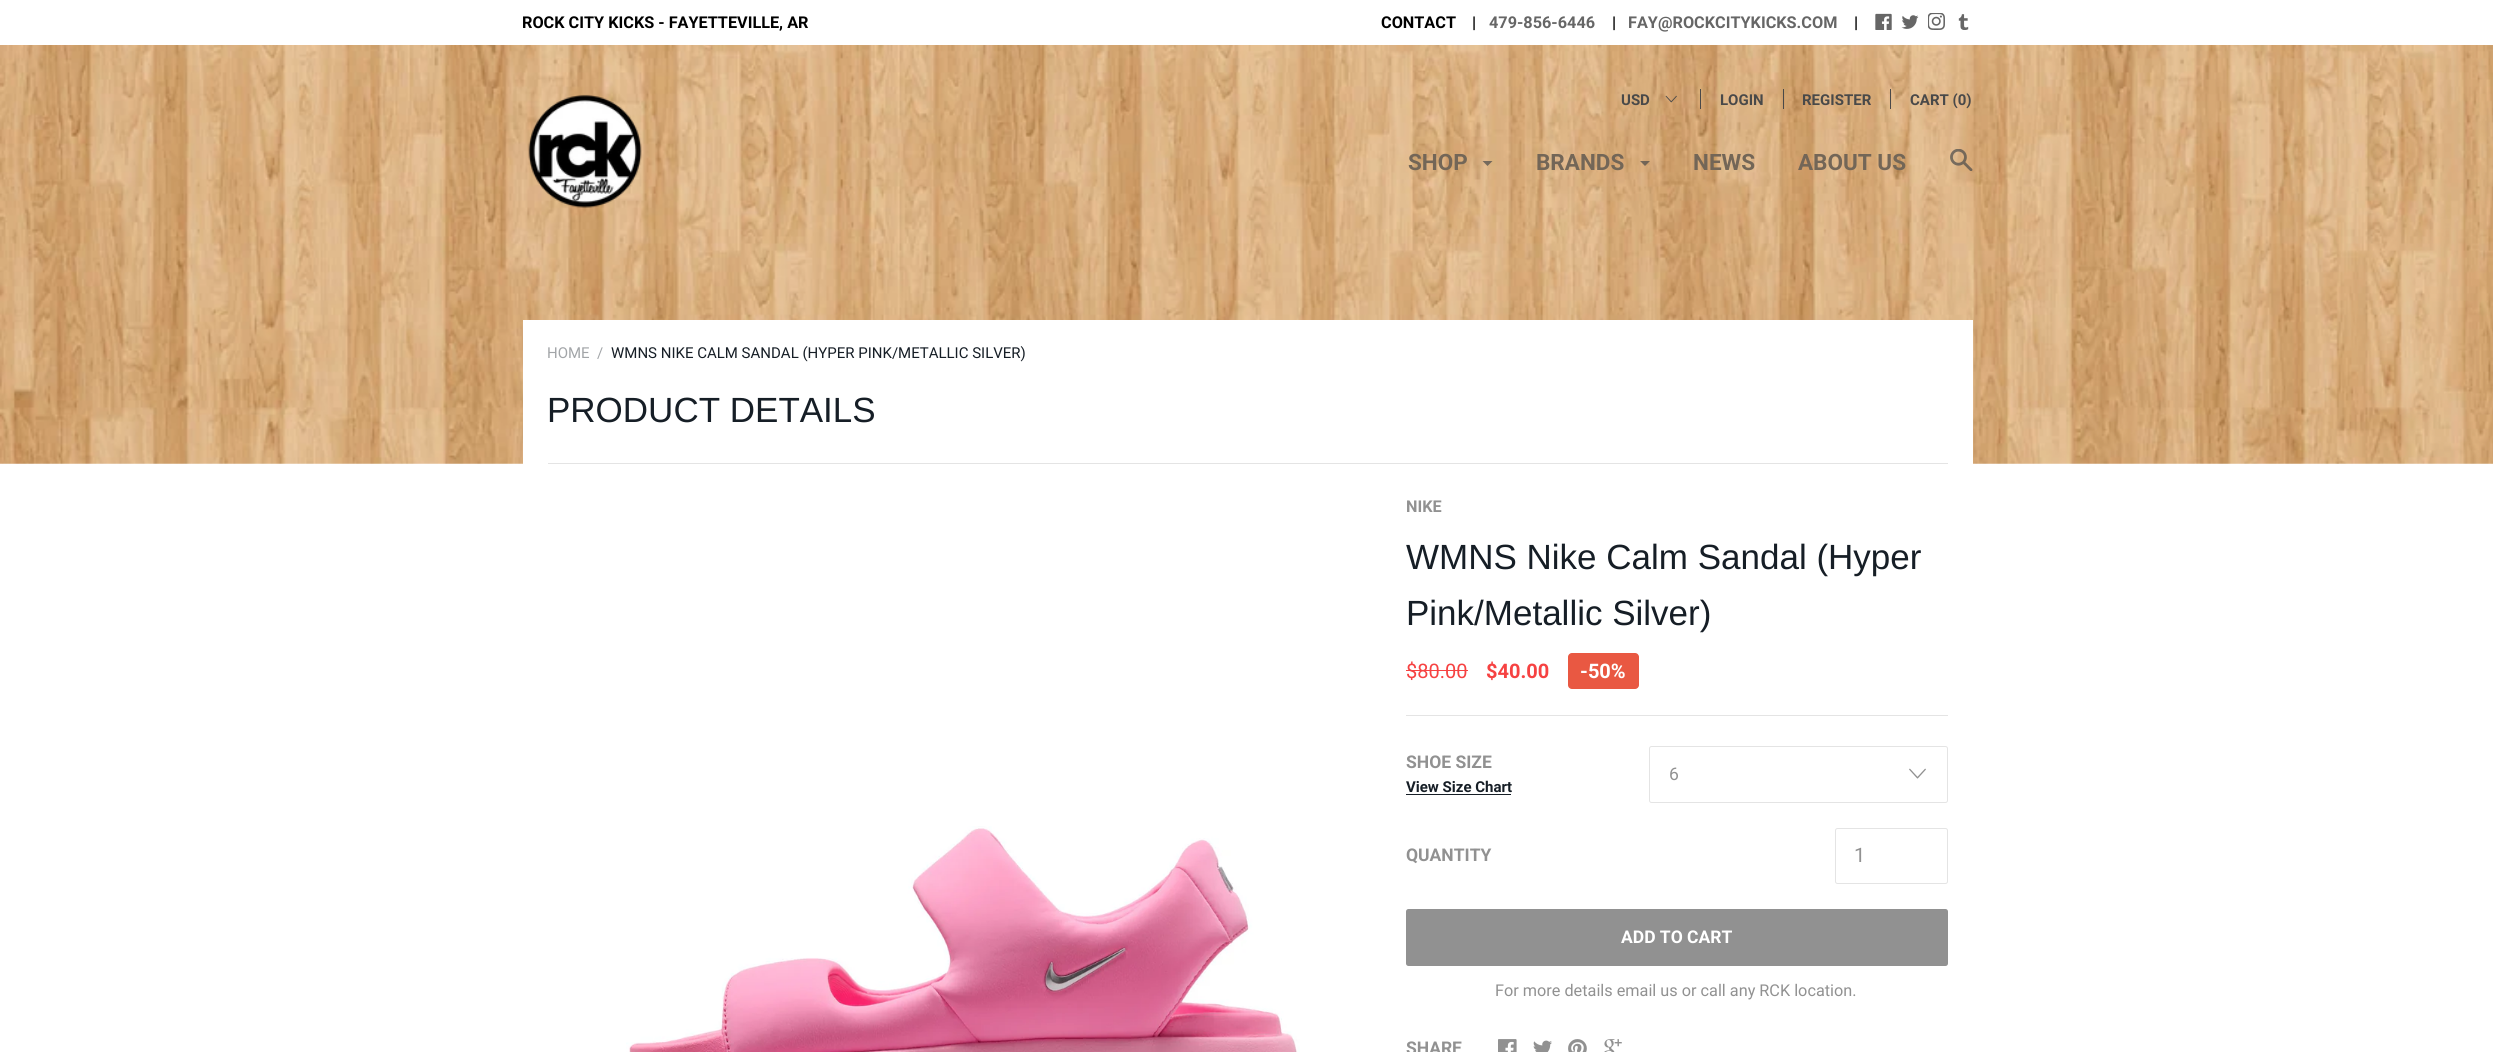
#include <cairo.h>
#include <math.h>
#include <stddef.h>


static void rgb(cairo_t *cr, int r, int g, int b)
{
	cairo_set_source_rgb(cr, r / 255.0, g / 255.0, b / 255.0);
}

static void face(cairo_t *cr, const char *family, double size, int italic, int bold)
{
	cairo_select_font_face(cr, family, italic ? CAIRO_FONT_SLANT_ITALIC : CAIRO_FONT_SLANT_NORMAL,
		bold ? CAIRO_FONT_WEIGHT_BOLD : CAIRO_FONT_WEIGHT_NORMAL);
	cairo_set_font_size(cr, size);
}

static void label(cairo_t *cr, double x, double y, const char *s)
{
	cairo_move_to(cr, x, y);
	cairo_show_text(cr, s);
}

static void rect(cairo_t *cr, double x, double y, double w, double h)
{
	cairo_rectangle(cr, x, y, w, h);
	cairo_fill(cr);
}

static void rrect(cairo_t *cr, double x, double y, double w, double h, double r)
{
	cairo_new_sub_path(cr);
	cairo_arc(cr, x + w - r, y + h - r, r, 0, M_PI / 2);
	cairo_arc(cr, x + r, y + h - r, r, M_PI / 2, M_PI);
	cairo_arc(cr, x + r, y + r, r, M_PI, 1.5 * M_PI);
	cairo_arc(cr, x + w - r, y + r, r, 1.5 * M_PI, 2 * M_PI);
	cairo_close_path(cr);
}

static void image(cairo_t *cr, const char *path, double x, double y, double w, double h)
{
	cairo_surface_t *image = cairo_image_surface_create_from_png(path);
	cairo_save(cr);
	cairo_set_source_surface(cr, image, x, y);
	cairo_rectangle(cr, x, y, w, h);
	cairo_fill(cr);
	cairo_restore(cr);
	cairo_surface_destroy(image);
}

static void draw(cairo_t *cr) {
	rgb(cr, 255, 255, 255);
	cairo_paint(cr);
	image(cr, "image0.png", 0, 45, 2493, 419);
	face(cr, "Roboto", 16.25, 0, 1);
	rgb(cr, 0, 0, 0);
	label(cr, 522, 28, "ROCK CITY KICKS - FAYETTEVILLE, AR");
	label(cr, 1381, 28, "CONTACT");
	label(cr, 1472, 28, "|");
	rgb(cr, 102, 102, 102);
	label(cr, 1489, 28, "479-856-6446");
	rgb(cr, 0, 0, 0);
	label(cr, 1612, 28, "|");
	rgb(cr, 102, 102, 102);
	label(cr, 1628, 28, "FAY@ROCKCITYKICKS.COM");
	rgb(cr, 0, 0, 0);
	label(cr, 1854, 28, "|");
	image(cr, "image1.png", 1875, 13, 17, 17);
	image(cr, "image2.png", 1901, 15, 18, 14);
	image(cr, "image3.png", 1928, 13, 17, 17);
	image(cr, "image4.png", 1958, 14, 11, 16);
	image(cr, "image5.png", 528, 94, 114, 114);
	face(cr, "Roboto", 15, 0, 1);
	rgb(cr, 73, 73, 73);
	label(cr, 1621, 105, "USD");
	image(cr, "image6.png", 1665, 95, 12, 8);
	rect(cr, 1700, 89, 1, 20);
	label(cr, 1720, 105, "LOGIN");
	rect(cr, 1783, 89, 1, 20);
	label(cr, 1802, 105, "REGISTER");
	rect(cr, 1890, 89, 1, 20);
	label(cr, 1910, 105, "CART (0)");
	face(cr, "Roboto", 22.5, 0, 1);
	rgb(cr, 115, 102, 87);
	label(cr, 1408, 170, "SHOP");
	cairo_set_source_rgba(cr, 0.286, 0.286, 0.286, 0.7);
	cairo_new_path(cr);
	cairo_move_to(cr, 1482.5, 161);
	cairo_line_to(cr, 1492.5, 161);
	cairo_line_to(cr, 1487.5, 166);
	cairo_close_path(cr);
	cairo_fill(cr);
	rgb(cr, 115, 102, 87);
	label(cr, 1536, 170, "BRANDS");
	cairo_set_source_rgba(cr, 0.286, 0.286, 0.286, 0.7);
	cairo_new_path(cr);
	cairo_move_to(cr, 1640, 161);
	cairo_line_to(cr, 1650, 161);
	cairo_line_to(cr, 1645, 166);
	cairo_close_path(cr);
	cairo_fill(cr);
	rgb(cr, 115, 102, 87);
	label(cr, 1693, 170, "NEWS");
	label(cr, 1798, 170, "ABOUT US");
	image(cr, "image7.png", 1950, 149, 23, 22);
	rgb(cr, 255, 255, 255);
	rect(cr, 523, 320, 1450, 144);
	face(cr, "Roboto", 15, 0, 0);
	rgb(cr, 162, 165, 168);
	label(cr, 547, 358, "HOME");
	label(cr, 597, 358, "/");
	rgb(cr, 22, 30, 38);
	label(cr, 611, 358, "WMNS NIKE CALM SANDAL (HYPER PINK/METALLIC SILVER)");
	rgb(cr, 228, 228, 228);
	rect(cr, 548, 463, 1400, 1);
	face(cr, "Liberation Sans", 35, 0, 0);
	rgb(cr, 22, 30, 38);
	label(cr, 547, 422, "PRODUCT DETAILS");
	image(cr, "image8.png", 626, 826, 674, 226);
	rgb(cr, 228, 228, 228);
	rect(cr, 1406, 715, 542, 1);
	face(cr, "Roboto", 16.25, 0, 1);
	rgb(cr, 145, 145, 145);
	label(cr, 1406, 512, "NIKE");
	face(cr, "Liberation Sans", 35, 0, 0);
	rgb(cr, 22, 30, 38);
	label(cr, 1406, 569, "WMNS Nike Calm Sandal (Hyper");
	label(cr, 1406, 625, "Pink/Metallic Silver)");
	face(cr, "Roboto", 20, 0, 0);
	rgb(cr, 246, 66, 66);
	label(cr, 1406, 678, "$80.00");
	rect(cr, 1406, 670, 62, 1);
	face(cr, "Roboto", 20, 0, 1);
	label(cr, 1486, 678, "$40.00");
	rgb(cr, 233, 88, 66);
	rrect(cr, 1568, 653, 71, 36, 4);
	cairo_fill(cr);
	rgb(cr, 255, 255, 255);
	label(cr, 1580, 678, "-50%");
	face(cr, "Roboto", 17.5, 0, 1);
	rgb(cr, 145, 145, 145);
	label(cr, 1406, 768, "SHOE SIZE");
	face(cr, "Roboto", 15, 0, 1);
	rgb(cr, 22, 30, 38);
	label(cr, 1406, 792, "View Size Chart");
	rect(cr, 1406, 794, 105, 1);
	rrect(cr, 1649.5, 746.5, 298, 56, 2);
	rgb(cr, 228, 228, 228);
	cairo_set_line_width(cr, 1);
	cairo_stroke(cr);
	face(cr, "Roboto", 17.5, 0, 0);
	rgb(cr, 145, 145, 145);
	label(cr, 1669, 780, "6");
	image(cr, "image9.png", 1909, 768, 17, 11);
	face(cr, "Roboto", 17.5, 0, 1);
	label(cr, 1406, 861, "QUANTITY");
	rrect(cr, 1835.5, 828.5, 112, 55, 2);
	rgb(cr, 228, 228, 228);
	cairo_stroke(cr);
	face(cr, "Roboto", 20, 0, 0);
	rgb(cr, 145, 145, 145);
	label(cr, 1854, 862, "1");
	rrect(cr, 1406, 909, 542, 57, 2.5);
	cairo_fill(cr);
	face(cr, "Roboto", 17.5, 0, 1);
	rgb(cr, 255, 255, 255);
	label(cr, 1621, 943, "ADD TO CART");
	face(cr, "Roboto", 16.25, 0, 0);
	rgb(cr, 145, 145, 145);
	label(cr, 1495, 996, "For more details email us or call any RCK location.");
	face(cr, "Roboto", 17.5, 0, 1);
	label(cr, 1406, 1054, "SHARE");
	image(cr, "image10.png", 1498, 1039, 19, 13);
	image(cr, "image11.png", 1533, 1040, 19, 12);
	image(cr, "image12.png", 1568, 1039, 19, 13);
	image(cr, "image13.png", 1604, 1039, 18, 13);
}

int main(void) {
	cairo_surface_t *surface = cairo_image_surface_create(CAIRO_FORMAT_RGB24, 2493, 1052);
	cairo_t *cr = cairo_create(surface);
	cairo_font_options_t *options = cairo_font_options_create();
	cairo_font_options_set_hint_metrics(options, CAIRO_HINT_METRICS_OFF);
	cairo_font_options_set_hint_style(options, CAIRO_HINT_STYLE_NONE);
	cairo_set_font_options(cr, options);
	cairo_set_miter_limit(cr, 4);
	draw(cr);
	cairo_surface_write_to_png(surface, "render.png");
	cairo_font_options_destroy(options);
	cairo_destroy(cr);
	cairo_surface_destroy(surface);
	return 0;
}
